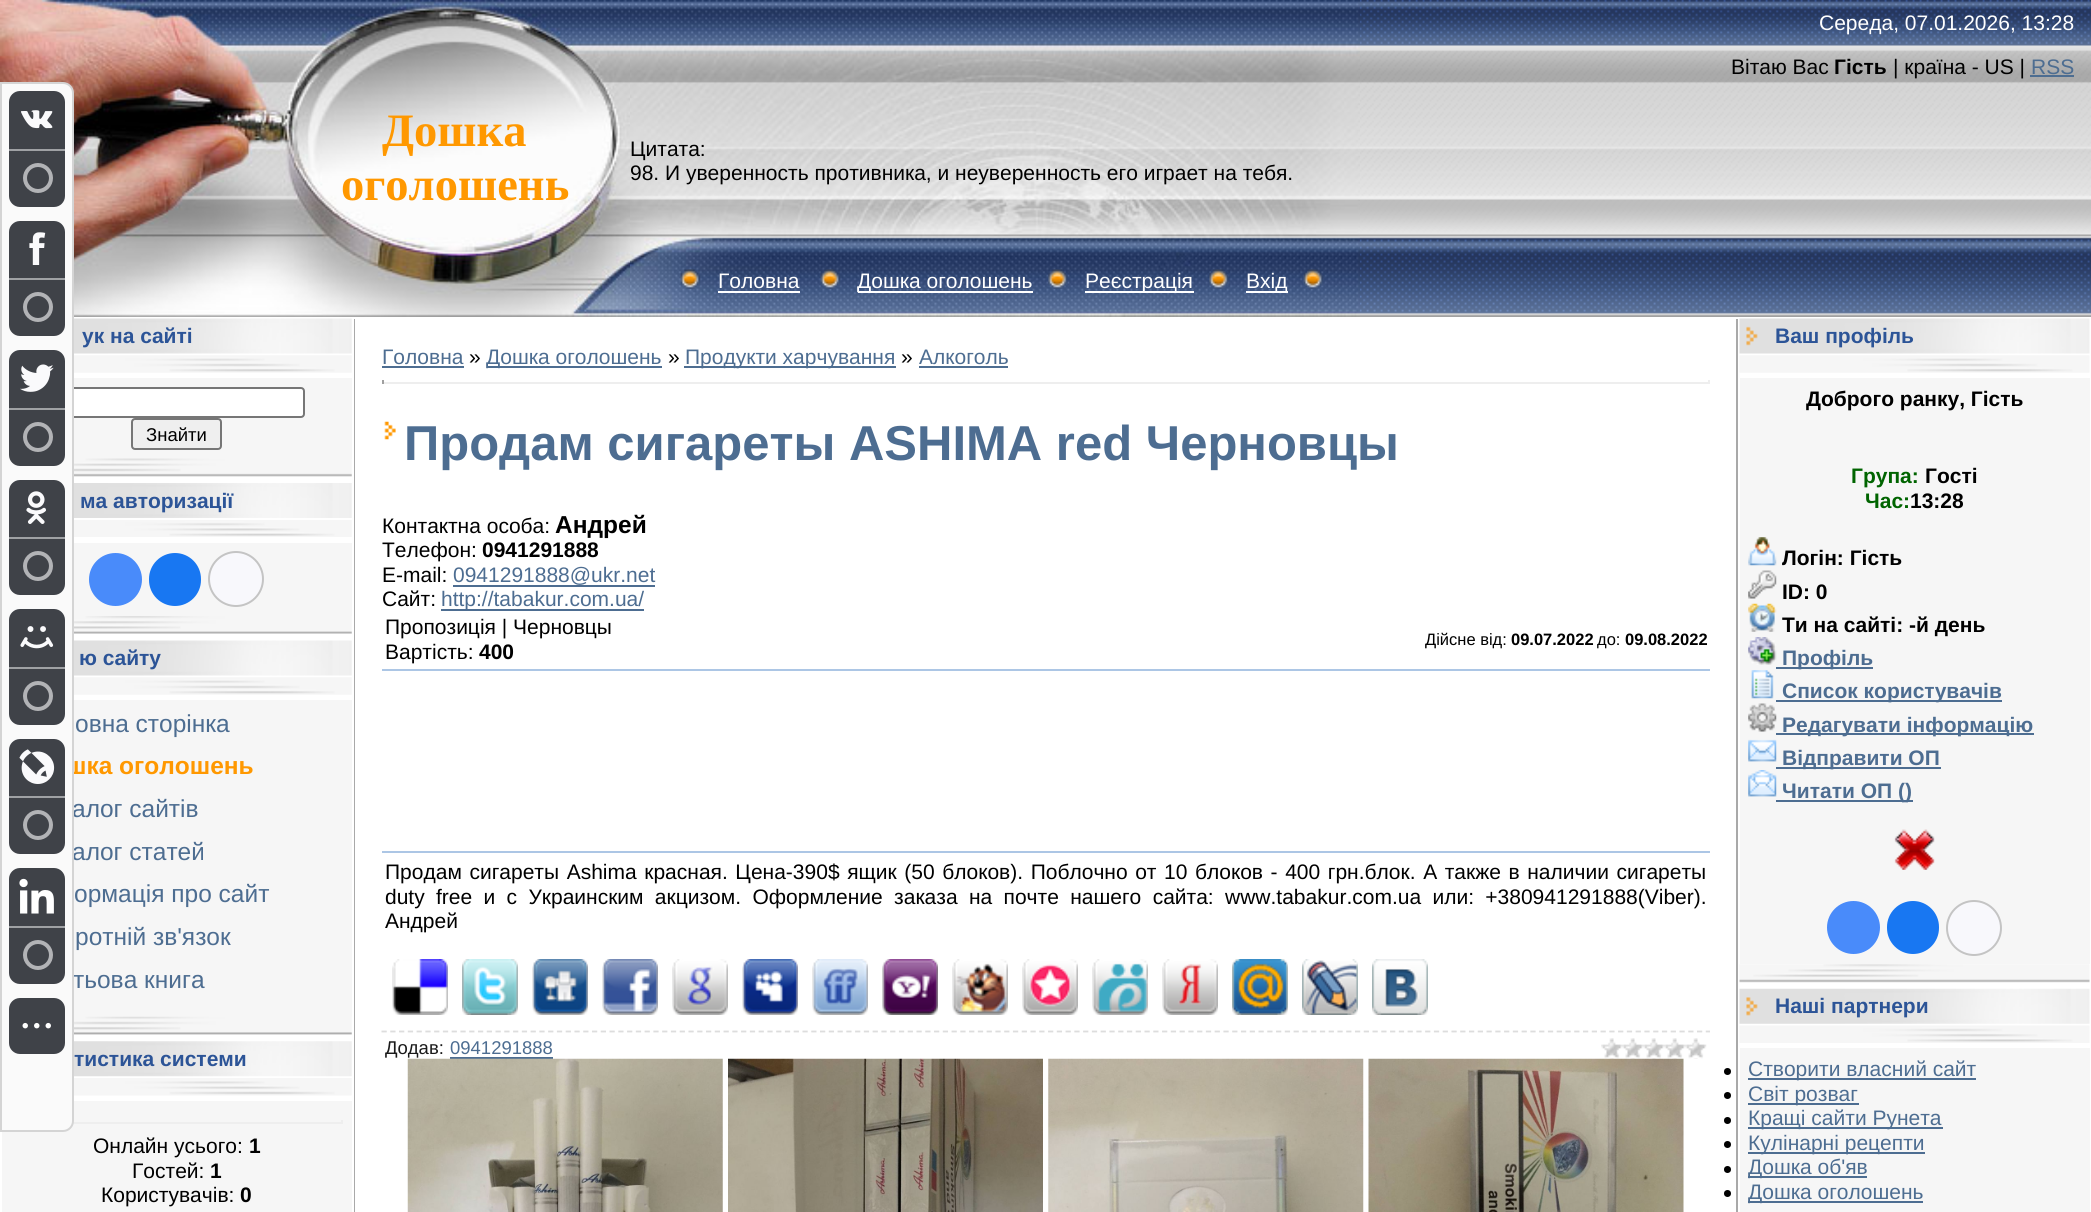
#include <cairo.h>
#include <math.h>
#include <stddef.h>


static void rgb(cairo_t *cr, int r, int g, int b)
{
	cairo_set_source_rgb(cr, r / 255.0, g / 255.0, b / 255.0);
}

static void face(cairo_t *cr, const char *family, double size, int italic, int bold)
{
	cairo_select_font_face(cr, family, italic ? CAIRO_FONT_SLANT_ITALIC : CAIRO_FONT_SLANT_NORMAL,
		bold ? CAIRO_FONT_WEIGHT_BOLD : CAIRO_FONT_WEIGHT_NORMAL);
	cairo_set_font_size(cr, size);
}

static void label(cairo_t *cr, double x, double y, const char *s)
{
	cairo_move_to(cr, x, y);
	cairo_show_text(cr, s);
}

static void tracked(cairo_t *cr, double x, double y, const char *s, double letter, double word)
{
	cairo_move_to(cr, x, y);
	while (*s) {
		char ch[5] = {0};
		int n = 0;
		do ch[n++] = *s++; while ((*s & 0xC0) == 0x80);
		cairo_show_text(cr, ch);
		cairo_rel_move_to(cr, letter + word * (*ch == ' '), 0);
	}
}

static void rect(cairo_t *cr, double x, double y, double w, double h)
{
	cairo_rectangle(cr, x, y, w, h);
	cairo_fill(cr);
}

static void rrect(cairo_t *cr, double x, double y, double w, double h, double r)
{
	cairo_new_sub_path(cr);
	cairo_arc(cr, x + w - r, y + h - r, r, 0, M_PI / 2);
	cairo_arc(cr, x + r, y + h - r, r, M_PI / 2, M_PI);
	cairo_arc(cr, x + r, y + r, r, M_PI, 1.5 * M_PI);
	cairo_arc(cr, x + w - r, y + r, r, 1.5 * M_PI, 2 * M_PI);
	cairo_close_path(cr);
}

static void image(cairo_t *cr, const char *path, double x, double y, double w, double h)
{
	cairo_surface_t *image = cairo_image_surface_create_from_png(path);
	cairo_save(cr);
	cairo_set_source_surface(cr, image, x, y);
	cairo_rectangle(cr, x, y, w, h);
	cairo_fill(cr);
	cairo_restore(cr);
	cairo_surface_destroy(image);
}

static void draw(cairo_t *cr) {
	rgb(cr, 255, 255, 255);
	cairo_paint(cr);
	rgb(cr, 161, 161, 161);
	rect(cr, 74, 316, 2017, 1);
	image(cr, "image9.png", 0, 0, 630, 317);
	rgb(cr, 246, 246, 246);
	rect(cr, 74, 378, 278, 81);
	rgb(cr, 255, 255, 255);
	rrect(cr, 50, 388, 254, 29, 3);
	cairo_fill_preserve(cr);
	rgb(cr, 118, 118, 118);
	cairo_stroke(cr);
	rgb(cr, 246, 246, 246);
	rect(cr, 74, 700, 278, 317);
	face(cr, "Liberation Sans", 24.5, 0, 1);
	rgb(cr, 255, 152, 0);
	label(cr, 66, 774, "шка оголошень");
	face(cr, "Liberation Sans", 24.5, 0, 0);
	rgb(cr, 77, 109, 145);
	label(cr, 72, 817, "алог сайтів");
	label(cr, 72, 860, "алог статей");
	label(cr, 73, 988, "тьова книга");
	rgb(cr, 246, 246, 246);
	rect(cr, 2, 1101, 350, 111);
	rgb(cr, 238, 238, 238);
	rect(cr, 341, 1120, 2, 4);
	rect(cr, 73, 1122, 270, 2);
	rgb(cr, 250, 250, 250);
	cairo_new_path(cr);
	cairo_move_to(cr, 1, 83);
	cairo_line_to(cr, 63, 83);
	cairo_curve_to(cr, 68.5, 83, 73, 87.5, 73, 93);
	cairo_line_to(cr, 73, 1121);
	cairo_curve_to(cr, 73, 1126.5, 68.5, 1131, 63, 1131);
	cairo_line_to(cr, 1, 1131);
	cairo_close_path(cr);
	cairo_fill_preserve(cr);
	rgb(cr, 212, 212, 212);
	cairo_stroke(cr);
	rgb(cr, 63, 66, 72);
	rrect(cr, 9, 91, 56, 116, 11);
	cairo_fill(cr);
	image(cr, "image0.png", 21, 110, 32, 19);
	rgb(cr, 159, 161, 164);
	rect(cr, 9, 149, 56, 2);
	cairo_arc(cr, 38, 178, 13, 0, 2 * M_PI);
	rgb(cr, 178, 179, 182);
	cairo_set_line_width(cr, 4);
	cairo_stroke(cr);
	rgb(cr, 63, 66, 72);
	rrect(cr, 9, 221, 56, 115, 11);
	cairo_fill(cr);
	image(cr, "image1.png", 29, 232, 17, 33);
	rgb(cr, 159, 161, 164);
	rect(cr, 9, 278, 56, 2);
	cairo_arc(cr, 38, 307, 13, 0, 2 * M_PI);
	rgb(cr, 178, 179, 182);
	cairo_stroke(cr);
	rgb(cr, 63, 66, 72);
	rrect(cr, 9, 350, 56, 116, 11);
	cairo_fill(cr);
	image(cr, "image2.png", 20, 364, 34, 28);
	rgb(cr, 159, 161, 164);
	rect(cr, 9, 408, 56, 2);
	cairo_arc(cr, 38, 437, 13, 0, 2 * M_PI);
	rgb(cr, 178, 179, 182);
	cairo_stroke(cr);
	rgb(cr, 63, 66, 72);
	rrect(cr, 9, 480, 56, 115, 11);
	cairo_fill(cr);
	image(cr, "image3.png", 26, 491, 20, 33);
	rgb(cr, 159, 161, 164);
	rect(cr, 9, 537, 56, 2);
	cairo_arc(cr, 38, 566, 13, 0, 2 * M_PI);
	rgb(cr, 178, 179, 182);
	cairo_stroke(cr);
	rgb(cr, 63, 66, 72);
	rrect(cr, 9, 609, 56, 116, 11);
	cairo_fill(cr);
	image(cr, "image4.png", 20, 626, 34, 23);
	rgb(cr, 159, 161, 164);
	rect(cr, 9, 667, 56, 2);
	cairo_arc(cr, 38, 696, 13, 0, 2 * M_PI);
	rgb(cr, 178, 179, 182);
	cairo_stroke(cr);
	rgb(cr, 63, 66, 72);
	rrect(cr, 9, 739, 56, 115, 11);
	cairo_fill(cr);
	image(cr, "image5.png", 19, 749, 36, 35);
	rgb(cr, 159, 161, 164);
	rect(cr, 9, 796, 56, 2);
	cairo_arc(cr, 38, 825, 13, 0, 2 * M_PI);
	rgb(cr, 178, 179, 182);
	cairo_stroke(cr);
	rgb(cr, 63, 66, 72);
	rrect(cr, 9, 868, 56, 116, 11);
	cairo_fill(cr);
	image(cr, "image6.png", 19, 878, 35, 36);
	rgb(cr, 159, 161, 164);
	rect(cr, 9, 926, 56, 2);
	cairo_arc(cr, 38, 955, 13, 0, 2 * M_PI);
	rgb(cr, 178, 179, 182);
	cairo_stroke(cr);
	rgb(cr, 63, 66, 72);
	rrect(cr, 9, 998, 56, 56, 11);
	cairo_fill(cr);
	image(cr, "image7.png", 22, 1022, 29, 7);
	image(cr, "image8.png", 1359, 0, 732, 316);
	face(cr, "Liberation Serif", 46.5, 0, 1);
	rgb(cr, 255, 152, 0);
	label(cr, 382, 146, "Дошка");
	label(cr, 341, 200, "оголошень");
	image(cr, "image10.png", 630, 0, 730, 317);
	face(cr, "Liberation Sans", 21, 0, 0);
	rgb(cr, 255, 255, 255);
	label(cr, 1819, 30, "Середа, 07.01.2026, 13:28");
	rgb(cr, 0, 0, 0);
	label(cr, 1731, 74, "Вітаю Вас");
	face(cr, "Liberation Sans", 21, 0, 1);
	label(cr, 1834, 74, "Гість");
	face(cr, "Liberation Sans", 21, 0, 0);
	label(cr, 1893, 74, "| країна - US |");
	rgb(cr, 77, 109, 145);
	label(cr, 2031, 74, "RSS");
	rect(cr, 2030, 75, 44, 2);
	rgb(cr, 0, 0, 0);
	label(cr, 630, 156, "Цитата:");
	label(cr, 630, 180, "98. И уверенность противника, и неуверенность его играет на тебя.");
	image(cr, "image11.png", 680, 269, 21, 20);
	rgb(cr, 255, 255, 255);
	label(cr, 718, 288, "Головна");
	rect(cr, 718, 291, 82, 2);
	image(cr, "image12.png", 820, 269, 21, 20);
	rect(cr, 858, 291, 175, 2);
	label(cr, 857, 288, "Дошка оголошень");
	image(cr, "image13.png", 1048, 269, 20, 20);
	rect(cr, 1085, 291, 109, 2);
	label(cr, 1085, 288, "Реєстрація");
	image(cr, "image14.png", 1209, 269, 20, 20);
	rect(cr, 1246, 291, 42, 2);
	label(cr, 1246, 288, "Вхід");
	image(cr, "image15.png", 1303, 269, 21, 20);
	image(cr, "image16.png", 74, 318, 278, 36);
	face(cr, "Liberation Sans", 21, 0, 1);
	rgb(cr, 44, 84, 151);
	label(cr, 82, 343, "ук на сайті");
	image(cr, "image17.png", 74, 355, 278, 18);
	rgb(cr, 239, 239, 239);
	rrect(cr, 132, 419, 89, 30, 3);
	cairo_fill_preserve(cr);
	rgb(cr, 118, 118, 118);
	cairo_set_line_width(cr, 2);
	cairo_stroke(cr);
	face(cr, "Liberation Sans", 18.5, 0, 0);
	rgb(cr, 0, 0, 0);
	label(cr, 146, 441, "Знайти");
	image(cr, "image18.png", 74, 458, 278, 19);
	image(cr, "image19.png", 74, 483, 278, 35);
	face(cr, "Liberation Sans", 21, 0, 1);
	rgb(cr, 44, 84, 151);
	label(cr, 80, 508, "ма авторизації");
	image(cr, "image20.png", 74, 520, 278, 17);
	rgb(cr, 246, 246, 246);
	rect(cr, 74, 543, 278, 73);
	rgb(cr, 73, 139, 250);
	cairo_arc(cr, 115.5, 579.5, 26.5, 0, 2 * M_PI);
	cairo_fill(cr);
	rgb(cr, 24, 119, 242);
	rrect(cr, 149, 553, 52, 53, 26);
	cairo_fill(cr);
	rgb(cr, 248, 248, 252);
	cairo_arc(cr, 236, 579, 27, 0, 2 * M_PI);
	cairo_fill_preserve(cr);
	rgb(cr, 196, 196, 196);
	cairo_stroke(cr);
	image(cr, "image21.png", 74, 616, 278, 18);
	image(cr, "image16.png", 74, 640, 278, 36);
	rgb(cr, 44, 84, 151);
	label(cr, 79, 665, "ю сайту");
	image(cr, "image17.png", 74, 677, 278, 18);
	face(cr, "Liberation Sans", 24.5, 0, 0);
	rgb(cr, 77, 109, 145);
	label(cr, 75, 732, "овна сторінка");
	label(cr, 74, 902, "ормація про сайт");
	label(cr, 75, 945, "ротній зв'язок");
	image(cr, "image22.png", 74, 1016, 278, 19);
	image(cr, "image23.png", 74, 1041, 278, 36);
	face(cr, "Liberation Sans", 21, 0, 1);
	rgb(cr, 44, 84, 151);
	label(cr, 74, 1066, "тистика системи");
	image(cr, "image24.png", 74, 1078, 278, 18);
	face(cr, "Liberation Sans", 21, 0, 0);
	rgb(cr, 0, 0, 0);
	label(cr, 93, 1153, "Онлайн усього:");
	face(cr, "Liberation Sans", 21, 0, 1);
	label(cr, 249, 1153, "1");
	face(cr, "Liberation Sans", 21, 0, 0);
	label(cr, 132, 1178, "Гостей:");
	face(cr, "Liberation Sans", 21, 0, 1);
	label(cr, 210, 1178, "1");
	face(cr, "Liberation Sans", 21, 0, 0);
	label(cr, 101, 1202, "Користувачів:");
	face(cr, "Liberation Sans", 21, 0, 1);
	label(cr, 240, 1202, "0");
	rgb(cr, 169, 169, 169);
	rect(cr, 1736, 319, 2, 893);
	rect(cr, 354, 319, 1, 893);
	face(cr, "Liberation Sans", 21, 0, 0);
	rgb(cr, 77, 109, 145);
	label(cr, 382, 364, "Головна");
	rect(cr, 382, 366, 82, 2);
	rgb(cr, 0, 0, 0);
	label(cr, 469, 364, "»");
	rgb(cr, 77, 109, 145);
	rect(cr, 487, 366, 175, 2);
	label(cr, 486, 364, "Дошка оголошень");
	rgb(cr, 0, 0, 0);
	label(cr, 668, 364, "»");
	rgb(cr, 77, 109, 145);
	rect(cr, 684, 366, 212, 2);
	label(cr, 685, 364, "Продукти харчування");
	rgb(cr, 0, 0, 0);
	label(cr, 901, 364, "»");
	rgb(cr, 77, 109, 145);
	label(cr, 919, 364, "Алкоголь");
	rect(cr, 919, 366, 89, 2);
	rgb(cr, 238, 238, 238);
	rect(cr, 1708, 380, 2, 4);
	rect(cr, 382, 382, 1328, 2);
	rgb(cr, 159, 159, 159);
	rect(cr, 382, 380, 2, 4);
	image(cr, "image25.png", 384, 421, 12, 19);
	face(cr, "Liberation Sans", 49, 0, 1);
	rgb(cr, 77, 109, 145);
	label(cr, 404, 460, "Продам сигареты ASHIMA red Черновцы");
	face(cr, "Liberation Sans", 21, 0, 0);
	rgb(cr, 0, 0, 0);
	label(cr, 382, 533, "Контактна особа:");
	face(cr, "Liberation Sans", 24.5, 0, 1);
	label(cr, 555, 533, "Андрей");
	face(cr, "Liberation Sans", 21, 0, 0);
	label(cr, 382, 557, "Телефон:");
	face(cr, "Liberation Sans", 21, 0, 1);
	label(cr, 482, 557, "0941291888");
	face(cr, "Liberation Sans", 21, 0, 0);
	label(cr, 382, 582, "E-mail:");
	rgb(cr, 77, 109, 145);
	label(cr, 453, 582, "0941291888@ukr.net");
	rect(cr, 453, 585, 202, 2);
	rgb(cr, 0, 0, 0);
	label(cr, 382, 606, "Сайт:");
	rgb(cr, 77, 109, 145);
	rect(cr, 441, 609, 203, 2);
	label(cr, 441, 606, "http://tabakur.com.ua/");
	rgb(cr, 0, 0, 0);
	label(cr, 385, 634, "Пропозиція | Черновцы");
	label(cr, 385, 659, "Вартість:");
	face(cr, "Liberation Sans", 21, 0, 1);
	label(cr, 479, 659, "400");
	face(cr, "Liberation Sans", 16.5, 0, 0);
	label(cr, 1425, 645, "Дійсне від:");
	face(cr, "Liberation Sans", 16.5, 0, 1);
	label(cr, 1511, 645, "09.07.2022");
	face(cr, "Liberation Sans", 16.5, 0, 0);
	label(cr, 1597, 645, "до:");
	face(cr, "Liberation Sans", 16.5, 0, 1);
	label(cr, 1625, 645, "09.08.2022");
	rgb(cr, 172, 198, 229);
	rect(cr, 382, 669, 1328, 2);
	rect(cr, 382, 851, 1328, 2);
	face(cr, "Liberation Sans", 21, 0, 0);
	rgb(cr, 0, 0, 0);
	tracked(cr, 385, 879, "Продам сигареты Ashima красная. Цена-390$ ящик (50 блоков). Поблочно от 10 блоков - 400 грн.блок. А также в наличии сигареты", 0, 1.75);
	tracked(cr, 385, 904, "duty free и с Украинским акцизом. Оформление заказа на почте нашего сайта: www.tabakur.com.ua или: +380941291888(Viber).", 0, 5.5);
	label(cr, 385, 928, "Андрей");
	image(cr, "image26.png", 392, 959, 56, 56);
	image(cr, "image27.png", 462, 959, 56, 56);
	image(cr, "image28.png", 532, 959, 56, 56);
	image(cr, "image29.png", 602, 959, 56, 56);
	image(cr, "image30.png", 672, 959, 56, 56);
	image(cr, "image31.png", 742, 959, 56, 56);
	image(cr, "image32.png", 812, 959, 56, 56);
	image(cr, "image33.png", 882, 959, 56, 56);
	image(cr, "image34.png", 952, 959, 56, 56);
	image(cr, "image35.png", 1022, 959, 56, 56);
	image(cr, "image36.png", 1092, 959, 56, 56);
	image(cr, "image37.png", 1162, 959, 56, 56);
	image(cr, "image38.png", 1232, 959, 56, 56);
	image(cr, "image39.png", 1302, 959, 56, 56);
	image(cr, "image40.png", 1372, 959, 56, 56);
	cairo_new_path(cr);
	cairo_move_to(cr, 381.5, 1031.5);
	cairo_line_to(cr, 1710, 1031.5);
	rgb(cr, 221, 221, 221);
	cairo_set_line_width(cr, 1.8);
	cairo_set_dash(cr, (double[]){5.25, 3.52}, 2, 0);
	cairo_stroke(cr);
	face(cr, "Liberation Sans", 18.5, 0, 0);
	rgb(cr, 26, 26, 26);
	label(cr, 385, 1054, "Додав:");
	rgb(cr, 77, 109, 145);
	label(cr, 450, 1054, "0941291888");
	rect(cr, 450, 1057, 103, 2);
	image(cr, "image45.png", 1368, 1058, 316, 154);
	image(cr, "image41.png", 1601, 1038, 106, 21);
	image(cr, "image42.png", 407, 1058, 316, 154);
	image(cr, "image43.png", 728, 1058, 315, 154);
	image(cr, "image44.png", 1048, 1058, 316, 154);
	image(cr, "image46.png", 1739, 318, 351, 36);
	face(cr, "Liberation Sans", 21, 0, 1);
	rgb(cr, 44, 84, 151);
	label(cr, 1775, 343, "Ваш профіль");
	image(cr, "image47.png", 1739, 355, 351, 18);
	rgb(cr, 246, 246, 246);
	rect(cr, 1740, 378, 350, 586);
	rgb(cr, 0, 0, 0);
	label(cr, 1806, 406, "Доброго ранку, Гість");
	label(cr, 1925, 483, "Гості");
	rgb(cr, 0, 100, 0);
	label(cr, 1865, 508, "Час:");
	rgb(cr, 0, 0, 0);
	label(cr, 1910, 508, "13:28");
	image(cr, "image48.png", 1748, 537, 29, 29);
	label(cr, 1782, 565, "Логін: Гість");
	image(cr, "image49.png", 1748, 570, 29, 29);
	label(cr, 1782, 599, "ID: 0");
	image(cr, "image50.png", 1748, 603, 29, 29);
	label(cr, 1782, 632, "Ти на сайті: -й день");
	image(cr, "image51.png", 1748, 637, 29, 28);
	rgb(cr, 77, 109, 145);
	rect(cr, 1776, 667, 97, 2);
	label(cr, 1782, 665, "Профіль");
	image(cr, "image52.png", 1751, 670, 23, 29);
	rect(cr, 1776, 700, 226, 2);
	label(cr, 1782, 698, "Список користувачів");
	image(cr, "image53.png", 1748, 703, 29, 29);
	rect(cr, 1776, 733, 258, 2);
	label(cr, 1782, 732, "Редагувати інформацію");
	image(cr, "image54.png", 1748, 739, 29, 23);
	rect(cr, 1776, 767, 165, 2);
	label(cr, 1782, 765, "Відправити ОП");
	image(cr, "image55.png", 1748, 770, 29, 27);
	rect(cr, 1776, 800, 137, 2);
	label(cr, 1782, 798, "Читати ОП ()");
	image(cr, "image56.png", 1894, 829, 41, 41);
	rgb(cr, 73, 139, 250);
	cairo_arc(cr, 1853.5, 927.5, 26.5, 0, 2 * M_PI);
	cairo_fill(cr);
	rgb(cr, 24, 119, 242);
	rrect(cr, 1887, 901, 52, 53, 26);
	cairo_fill(cr);
	rgb(cr, 248, 248, 252);
	cairo_arc(cr, 1974, 928, 27, 0, 2 * M_PI);
	cairo_fill_preserve(cr);
	rgb(cr, 196, 196, 196);
	cairo_set_line_width(cr, 2);
	cairo_set_dash(cr, NULL, 0, 0);
	cairo_stroke(cr);
	rgb(cr, 0, 100, 0);
	label(cr, 1851, 483, "Група:");
	image(cr, "image57.png", 1739, 964, 351, 19);
	image(cr, "image58.png", 1739, 988, 351, 36);
	rgb(cr, 44, 84, 151);
	label(cr, 1775, 1013, "Наші партнери");
	image(cr, "image59.png", 1739, 1025, 351, 18);
	rgb(cr, 246, 246, 246);
	rect(cr, 1740, 1048, 350, 164);
	rgb(cr, 0, 0, 0);
	cairo_arc(cr, 1727.5, 1071.5, 3.5, 0, 2 * M_PI);
	cairo_fill(cr);
	rgb(cr, 77, 109, 145);
	rect(cr, 1748, 1078, 228, 2);
	face(cr, "Liberation Sans", 21, 0, 0);
	label(cr, 1748, 1076, "Створити власний сайт");
	rgb(cr, 0, 0, 0);
	cairo_new_path(cr);
	cairo_arc(cr, 1727.5, 1095.5, 3.5, 0, 2 * M_PI);
	cairo_fill(cr);
	rgb(cr, 77, 109, 145);
	rect(cr, 1748, 1103, 111, 2);
	label(cr, 1748, 1101, "Світ розваг");
	rgb(cr, 0, 0, 0);
	cairo_new_path(cr);
	cairo_arc(cr, 1727.5, 1120.5, 3.5, 0, 2 * M_PI);
	cairo_fill(cr);
	rgb(cr, 77, 109, 145);
	rect(cr, 1748, 1127, 195, 2);
	label(cr, 1748, 1125, "Кращі сайти Рунета");
	rgb(cr, 0, 0, 0);
	cairo_new_path(cr);
	cairo_arc(cr, 1727.5, 1144.5, 3.5, 0, 2 * M_PI);
	cairo_fill(cr);
	rgb(cr, 77, 109, 145);
	rect(cr, 1748, 1152, 177, 2);
	label(cr, 1748, 1150, "Кулінарні рецепти");
	rgb(cr, 0, 0, 0);
	cairo_new_path(cr);
	cairo_arc(cr, 1727.5, 1169.5, 3.5, 0, 2 * M_PI);
	cairo_fill(cr);
	rgb(cr, 77, 109, 145);
	rect(cr, 1748, 1176, 119, 2);
	label(cr, 1748, 1174, "Дошка об'яв");
	rgb(cr, 0, 0, 0);
	cairo_new_path(cr);
	cairo_arc(cr, 1727.5, 1193.5, 3.5, 0, 2 * M_PI);
	cairo_fill(cr);
	rgb(cr, 77, 109, 145);
	rect(cr, 1748, 1201, 175, 2);
	label(cr, 1748, 1199, "Дошка оголошень");
}

int main(void) {
	cairo_surface_t *surface = cairo_image_surface_create(CAIRO_FORMAT_RGB24, 2091, 1212);
	cairo_t *cr = cairo_create(surface);
	cairo_font_options_t *options = cairo_font_options_create();
	cairo_font_options_set_hint_metrics(options, CAIRO_HINT_METRICS_OFF);
	cairo_font_options_set_hint_style(options, CAIRO_HINT_STYLE_NONE);
	cairo_set_font_options(cr, options);
	cairo_set_miter_limit(cr, 4);
	draw(cr);
	cairo_surface_write_to_png(surface, "render.png");
	cairo_font_options_destroy(options);
	cairo_destroy(cr);
	cairo_surface_destroy(surface);
	return 0;
}
